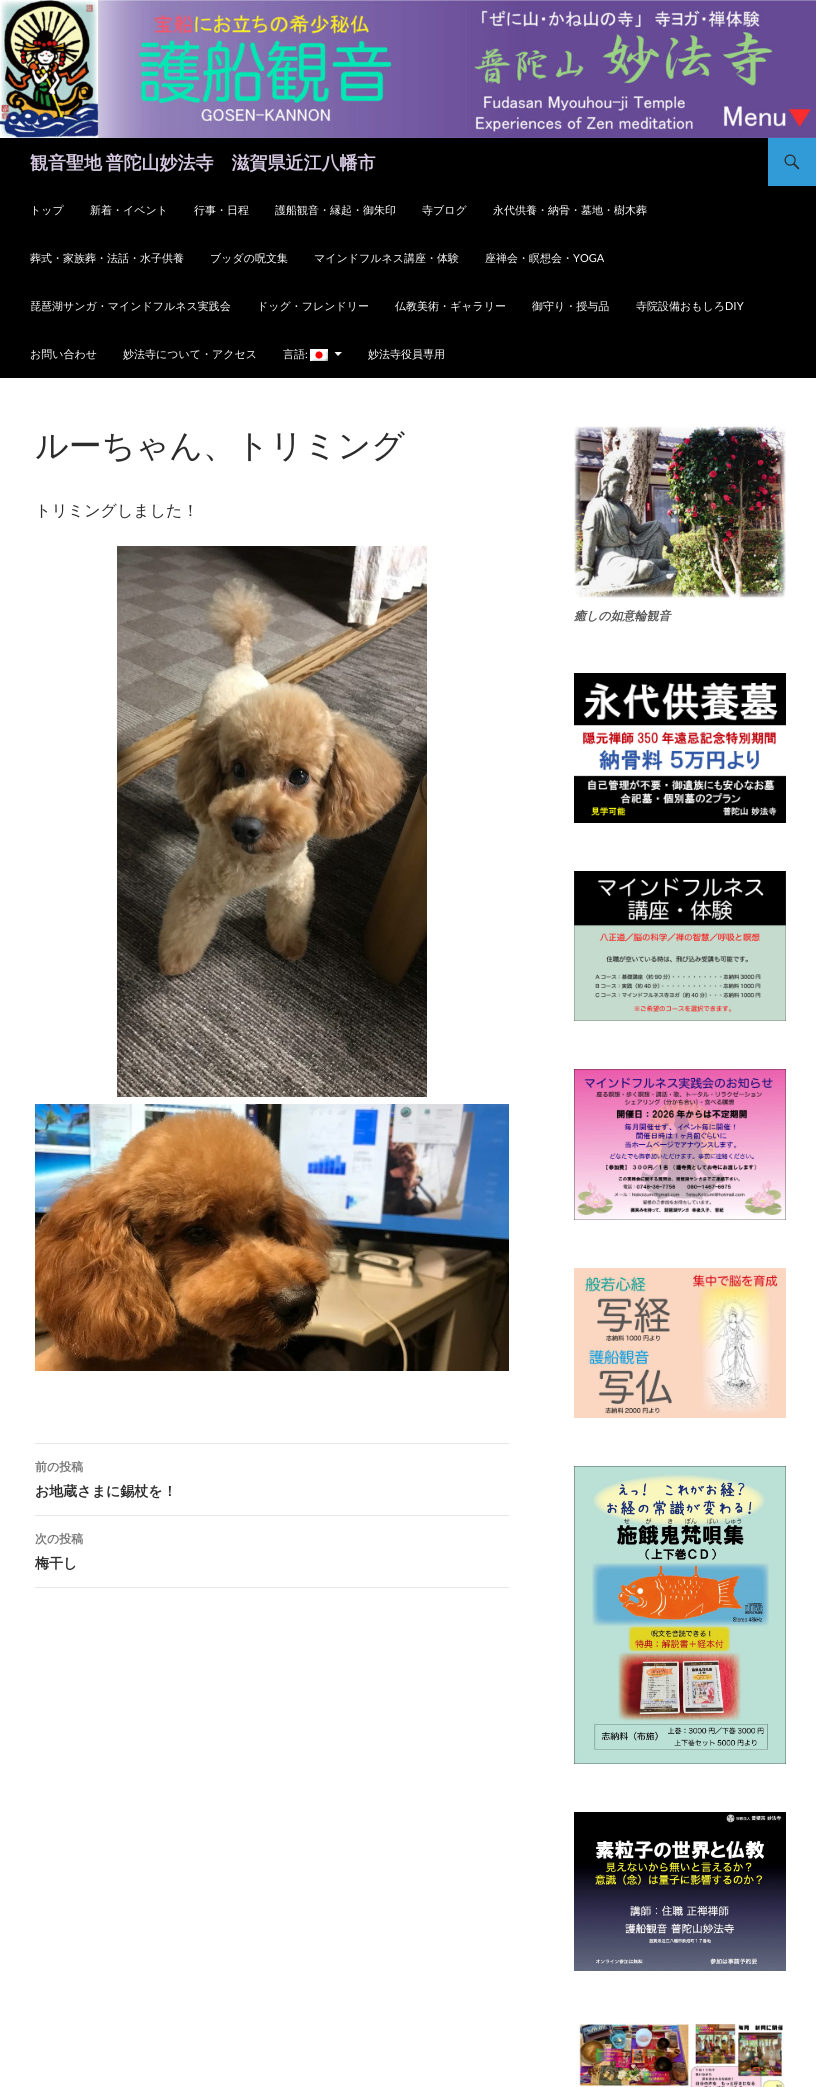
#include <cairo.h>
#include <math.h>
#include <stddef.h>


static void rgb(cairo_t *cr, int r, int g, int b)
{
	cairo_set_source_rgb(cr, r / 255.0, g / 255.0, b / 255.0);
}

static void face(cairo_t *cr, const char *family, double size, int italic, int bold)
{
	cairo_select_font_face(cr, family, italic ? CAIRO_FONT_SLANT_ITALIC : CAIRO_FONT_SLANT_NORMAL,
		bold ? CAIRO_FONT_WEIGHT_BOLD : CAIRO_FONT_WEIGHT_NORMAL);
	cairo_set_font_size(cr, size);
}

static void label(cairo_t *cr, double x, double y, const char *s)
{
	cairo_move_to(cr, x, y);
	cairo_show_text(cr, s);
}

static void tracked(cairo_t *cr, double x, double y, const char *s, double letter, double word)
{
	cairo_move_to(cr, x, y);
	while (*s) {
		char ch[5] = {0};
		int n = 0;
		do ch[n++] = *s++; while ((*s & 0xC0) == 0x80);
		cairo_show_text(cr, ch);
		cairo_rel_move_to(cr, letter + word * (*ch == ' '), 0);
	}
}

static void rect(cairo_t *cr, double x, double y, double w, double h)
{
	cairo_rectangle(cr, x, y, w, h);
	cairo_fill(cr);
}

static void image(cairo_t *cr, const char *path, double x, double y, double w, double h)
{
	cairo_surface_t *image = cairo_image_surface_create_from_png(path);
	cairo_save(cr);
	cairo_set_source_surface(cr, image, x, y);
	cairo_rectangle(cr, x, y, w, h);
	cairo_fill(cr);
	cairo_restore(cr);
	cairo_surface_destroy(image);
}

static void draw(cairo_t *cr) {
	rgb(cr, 255, 255, 255);
	cairo_paint(cr);
	image(cr, "image0.png", 0, 0, 816, 138);
	rgb(cr, 0, 0, 0);
	rect(cr, 0, 138, 816, 240);
	face(cr, "WenQuanYi Zen Hei", 18, 0, 1);
	rgb(cr, 214, 201, 226);
	tracked(cr, 30, 169, "観音聖地 普陀山妙法寺　滋賀県近江八幡市", 0, -2);
	rgb(cr, 49, 155, 216);
	rect(cr, 768, 138, 48, 48);
	image(cr, "image1.png", 784, 154, 16, 16);
	face(cr, "WenQuanYi Zen Hei Medium", 11, 0, 0);
	rgb(cr, 255, 255, 255);
	label(cr, 30, 214, "トップ");
	label(cr, 90, 214, "新着・イベント");
	label(cr, 194, 214, "行事・日程");
	label(cr, 275, 214, "護船観音・縁起・御朱印");
	label(cr, 422, 214, "寺ブログ");
	label(cr, 493, 214, "永代供養・納骨・墓地・樹木葬");
	label(cr, 30, 262, "葬式・家族葬・法話・水子供養");
	label(cr, 210, 262, "ブッダの呪文集");
	label(cr, 314, 262, "マインドフルネス講座・体験");
	label(cr, 485, 262, "座禅会・瞑想会・");
	face(cr, "Lato", 11, 0, 0);
	label(cr, 573, 262, "YOGA");
	face(cr, "WenQuanYi Zen Hei Medium", 11, 0, 0);
	label(cr, 30, 310, "琵琶湖サンガ・マインドフルネス実践会");
	label(cr, 257, 310, "ドッグ・フレンドリー");
	label(cr, 395, 310, "仏教美術・ギャラリー");
	label(cr, 532, 310, "御守り・授与品");
	label(cr, 636, 310, "寺院設備おもしろ");
	face(cr, "Lato", 11, 0, 0);
	label(cr, 725, 310, "DIY");
	face(cr, "WenQuanYi Zen Hei Medium", 11, 0, 0);
	label(cr, 30, 358, "お問い合わせ");
	label(cr, 123, 358, "妙法寺について・アクセス");
	label(cr, 283, 358, "言語");
	face(cr, "Lato", 11, 0, 0);
	label(cr, 305, 358, ":");
	image(cr, "image2.png", 310, 349, 18, 12);
	cairo_new_path(cr);
	cairo_move_to(cr, 334.5, 352);
	cairo_line_to(cr, 338, 356);
	cairo_line_to(cr, 342, 352);
	cairo_close_path(cr);
	cairo_fill(cr);
	face(cr, "WenQuanYi Zen Hei Medium", 11, 0, 0);
	label(cr, 368, 358, "妙法寺役員専用");
	face(cr, "WenQuanYi Zen Hei Medium", 33, 0, 0);
	rgb(cr, 43, 43, 43);
	label(cr, 35, 457, "ルーちゃん、トリミング");
	face(cr, "WenQuanYi Zen Hei Medium", 16, 0, 0);
	label(cr, 35, 516, "トリミングしました！");
	image(cr, "image3.png", 117, 546, 310, 551);
	image(cr, "image4.png", 35, 1104, 474, 267);
	rgb(cr, 230, 230, 230);
	rect(cr, 35, 1443, 474, 1);
	rect(cr, 35, 1515, 474, 1);
	face(cr, "WenQuanYi Zen Hei", 12, 0, 1);
	rgb(cr, 118, 118, 118);
	label(cr, 35, 1471, "前の投稿");
	face(cr, "WenQuanYi Zen Hei", 14, 0, 1);
	rgb(cr, 43, 43, 43);
	label(cr, 35, 1496, "お地蔵さまに錫杖を！");
	rgb(cr, 230, 230, 230);
	rect(cr, 35, 1587, 474, 1);
	face(cr, "WenQuanYi Zen Hei", 12, 0, 1);
	rgb(cr, 118, 118, 118);
	label(cr, 35, 1543, "次の投稿");
	face(cr, "WenQuanYi Zen Hei", 14, 0, 1);
	rgb(cr, 43, 43, 43);
	label(cr, 35, 1568, "梅干し");
	image(cr, "image5.png", 574, 426, 212, 172);
	face(cr, "WenQuanYi Zen Hei", 12, 1, 1);
	rgb(cr, 85, 85, 85);
	label(cr, 574, 620, "癒しの如意輪観音");
	image(cr, "image6.png", 574, 673, 212, 150);
	image(cr, "image7.png", 574, 871, 212, 150);
	image(cr, "image8.png", 574, 1069, 212, 151);
	image(cr, "image9.png", 574, 1268, 212, 150);
	image(cr, "image10.png", 574, 1466, 212, 298);
	image(cr, "image11.png", 574, 1812, 212, 159);
	image(cr, "image12.png", 578, 2023, 207, 64);
}

int main(void) {
	cairo_surface_t *surface = cairo_image_surface_create(CAIRO_FORMAT_RGB24, 816, 2087);
	cairo_t *cr = cairo_create(surface);
	cairo_font_options_t *options = cairo_font_options_create();
	cairo_font_options_set_hint_metrics(options, CAIRO_HINT_METRICS_OFF);
	cairo_font_options_set_hint_style(options, CAIRO_HINT_STYLE_NONE);
	cairo_set_font_options(cr, options);
	cairo_set_miter_limit(cr, 4);
	draw(cr);
	cairo_surface_write_to_png(surface, "render.png");
	cairo_font_options_destroy(options);
	cairo_destroy(cr);
	cairo_surface_destroy(surface);
	return 0;
}
